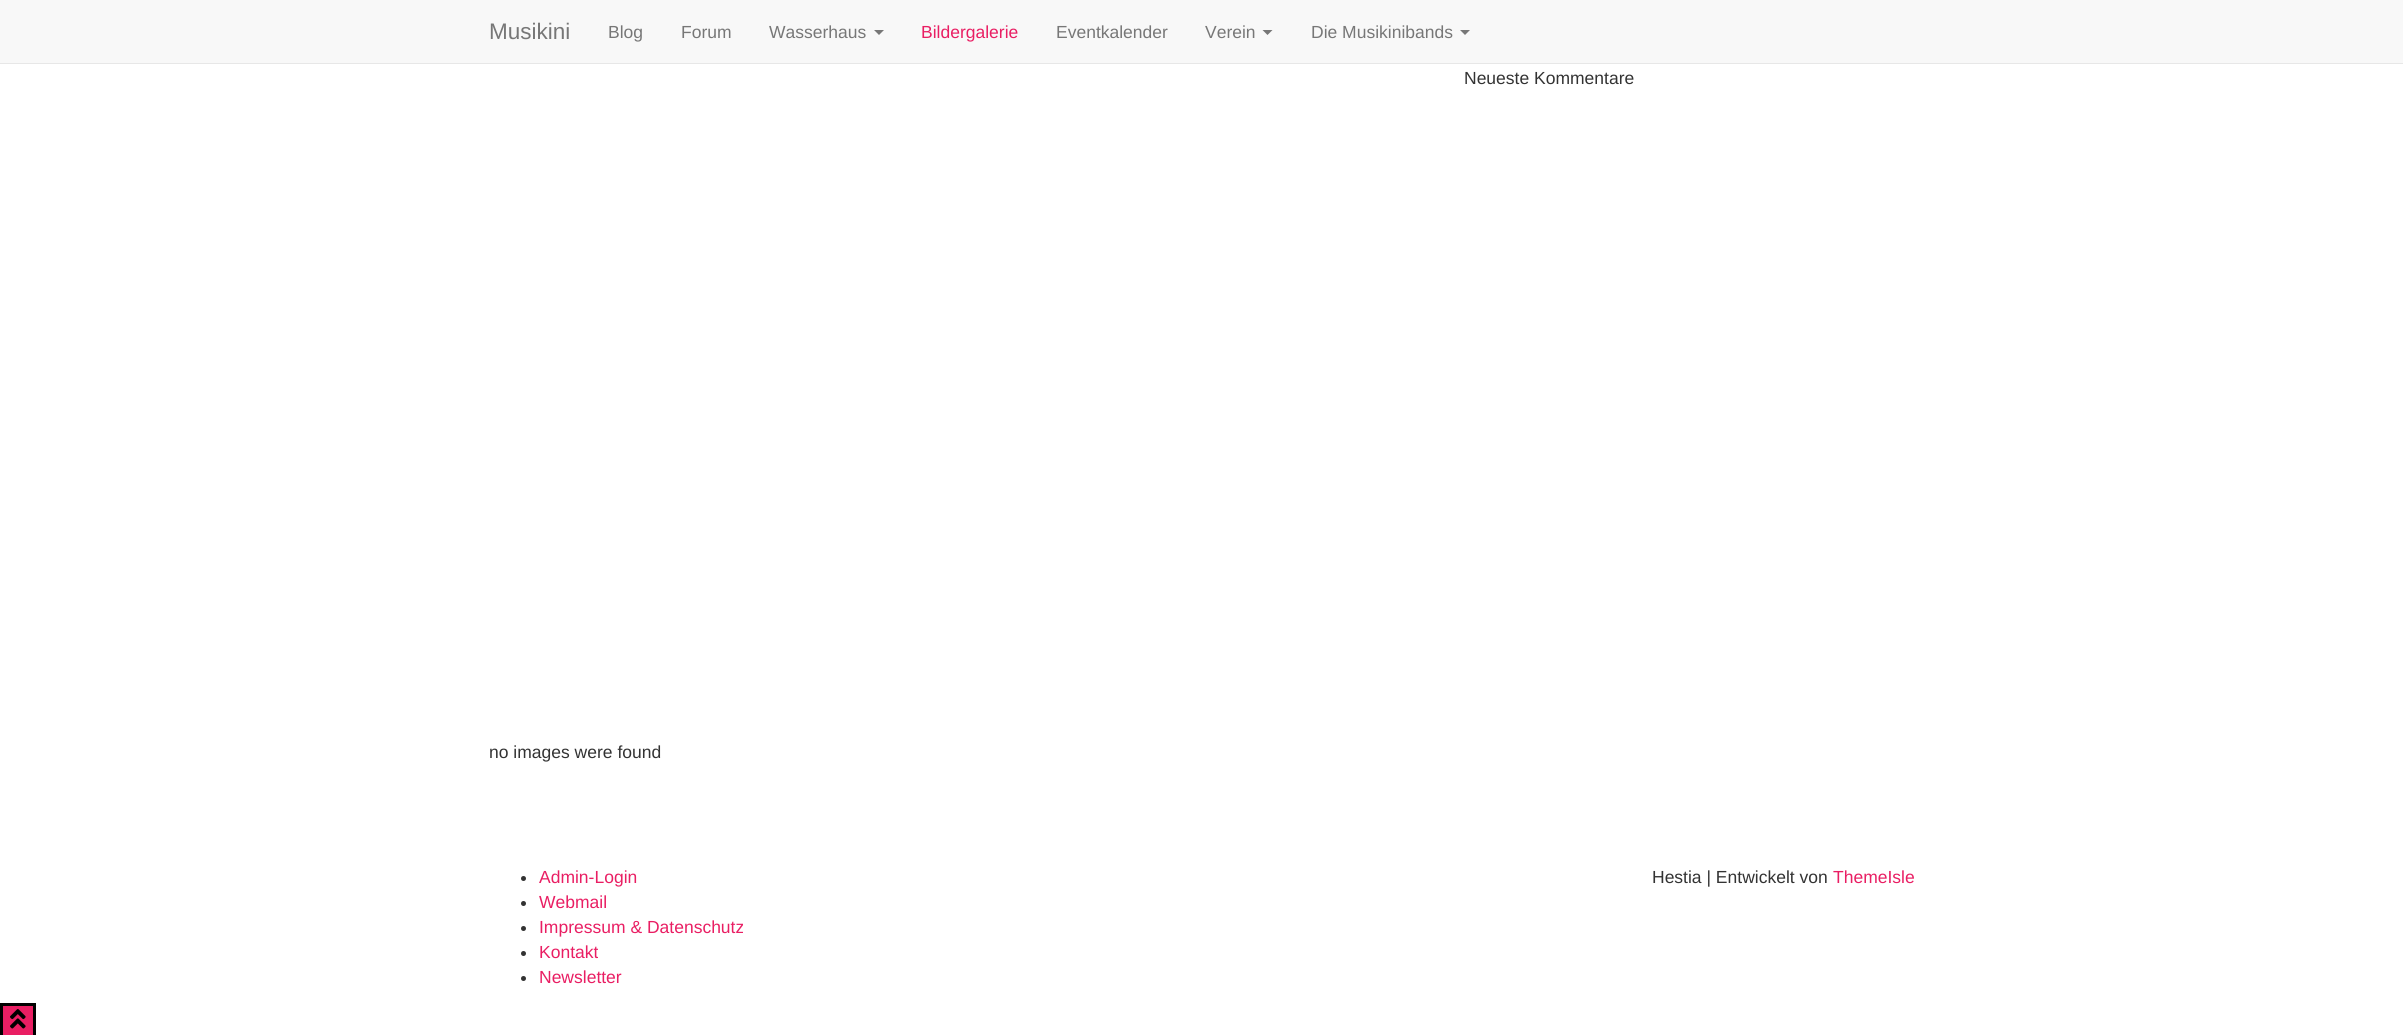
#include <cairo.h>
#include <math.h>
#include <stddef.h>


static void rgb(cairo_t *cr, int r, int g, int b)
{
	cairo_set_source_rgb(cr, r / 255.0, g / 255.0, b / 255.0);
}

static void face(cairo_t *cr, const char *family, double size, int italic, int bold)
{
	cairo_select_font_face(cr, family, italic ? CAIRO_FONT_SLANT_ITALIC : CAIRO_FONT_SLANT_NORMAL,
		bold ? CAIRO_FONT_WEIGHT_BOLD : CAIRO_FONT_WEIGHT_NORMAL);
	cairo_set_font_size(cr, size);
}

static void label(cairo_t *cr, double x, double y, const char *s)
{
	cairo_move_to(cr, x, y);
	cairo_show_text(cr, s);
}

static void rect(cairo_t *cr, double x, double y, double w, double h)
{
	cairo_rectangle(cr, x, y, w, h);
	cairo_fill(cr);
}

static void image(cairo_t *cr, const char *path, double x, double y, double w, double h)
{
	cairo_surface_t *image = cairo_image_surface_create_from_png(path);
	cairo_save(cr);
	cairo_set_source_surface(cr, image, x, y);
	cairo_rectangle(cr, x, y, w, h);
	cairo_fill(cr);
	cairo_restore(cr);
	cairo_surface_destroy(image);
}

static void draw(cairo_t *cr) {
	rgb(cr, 255, 255, 255);
	cairo_paint(cr);
	rgb(cr, 248, 248, 248);
	rect(cr, 0, 0, 2403, 63);
	rgb(cr, 231, 231, 231);
	rect(cr, 0, 63, 2403, 1);
	face(cr, "Liberation Sans", 22.5, 0, 0);
	rgb(cr, 119, 119, 119);
	label(cr, 489, 39, "Musikini");
	face(cr, "Liberation Sans", 17.5, 0, 0);
	label(cr, 608, 38, "Blog");
	label(cr, 681, 38, "Forum");
	label(cr, 769, 38, "Wasserhaus");
	cairo_new_path(cr);
	cairo_move_to(cr, 874, 30);
	cairo_line_to(cr, 884, 30);
	cairo_line_to(cr, 879, 35);
	cairo_close_path(cr);
	cairo_fill(cr);
	rgb(cr, 233, 30, 99);
	label(cr, 921, 38, "Bildergalerie");
	rgb(cr, 119, 119, 119);
	label(cr, 1056, 38, "Eventkalender");
	label(cr, 1205, 38, "Verein");
	cairo_new_path(cr);
	cairo_move_to(cr, 1262.5, 30);
	cairo_line_to(cr, 1272.5, 30);
	cairo_line_to(cr, 1267.5, 35);
	cairo_close_path(cr);
	cairo_fill(cr);
	label(cr, 1311, 38, "Die Musikinibands");
	cairo_new_path(cr);
	cairo_move_to(cr, 1460, 30);
	cairo_line_to(cr, 1470, 30);
	cairo_line_to(cr, 1465, 35);
	cairo_close_path(cr);
	cairo_fill(cr);
	rgb(cr, 51, 51, 51);
	label(cr, 1464, 84, "Neueste Kommentare");
	label(cr, 489, 758, "no images were found");
	cairo_new_path(cr);
	cairo_arc(cr, 523.5, 878.5, 2.5, 0, 2 * M_PI);
	cairo_fill(cr);
	rgb(cr, 233, 30, 99);
	label(cr, 539, 883, "Admin-Login");
	rgb(cr, 51, 51, 51);
	cairo_new_path(cr);
	cairo_arc(cr, 523.5, 903.5, 2.5, 0, 2 * M_PI);
	cairo_fill(cr);
	rgb(cr, 233, 30, 99);
	label(cr, 539, 908, "Webmail");
	rgb(cr, 51, 51, 51);
	cairo_new_path(cr);
	cairo_arc(cr, 523.5, 928.5, 2.5, 0, 2 * M_PI);
	cairo_fill(cr);
	rgb(cr, 233, 30, 99);
	label(cr, 539, 933, "Impressum & Datenschutz");
	rgb(cr, 51, 51, 51);
	cairo_new_path(cr);
	cairo_arc(cr, 523.5, 953.5, 2.5, 0, 2 * M_PI);
	cairo_fill(cr);
	rgb(cr, 233, 30, 99);
	label(cr, 539, 958, "Kontakt");
	rgb(cr, 51, 51, 51);
	cairo_new_path(cr);
	cairo_arc(cr, 523.5, 978.5, 2.5, 0, 2 * M_PI);
	cairo_fill(cr);
	rgb(cr, 233, 30, 99);
	label(cr, 539, 983, "Newsletter");
	rgb(cr, 51, 51, 51);
	label(cr, 1652, 883, "Hestia | Entwickelt von");
	rgb(cr, 233, 30, 99);
	label(cr, 1833, 883, "ThemeIsle");
	cairo_rectangle(cr, 1.5, 1004.5, 33, 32);
	cairo_fill_preserve(cr);
	rgb(cr, 0, 0, 0);
	cairo_set_line_width(cr, 3);
	cairo_stroke(cr);
	image(cr, "image0.png", 10, 1009, 16, 20);
}

int main(void) {
	cairo_surface_t *surface = cairo_image_surface_create(CAIRO_FORMAT_RGB24, 2403, 1035);
	cairo_t *cr = cairo_create(surface);
	cairo_font_options_t *options = cairo_font_options_create();
	cairo_font_options_set_hint_metrics(options, CAIRO_HINT_METRICS_OFF);
	cairo_font_options_set_hint_style(options, CAIRO_HINT_STYLE_NONE);
	cairo_set_font_options(cr, options);
	cairo_set_miter_limit(cr, 4);
	draw(cr);
	cairo_surface_write_to_png(surface, "render.png");
	cairo_font_options_destroy(options);
	cairo_destroy(cr);
	cairo_surface_destroy(surface);
	return 0;
}
